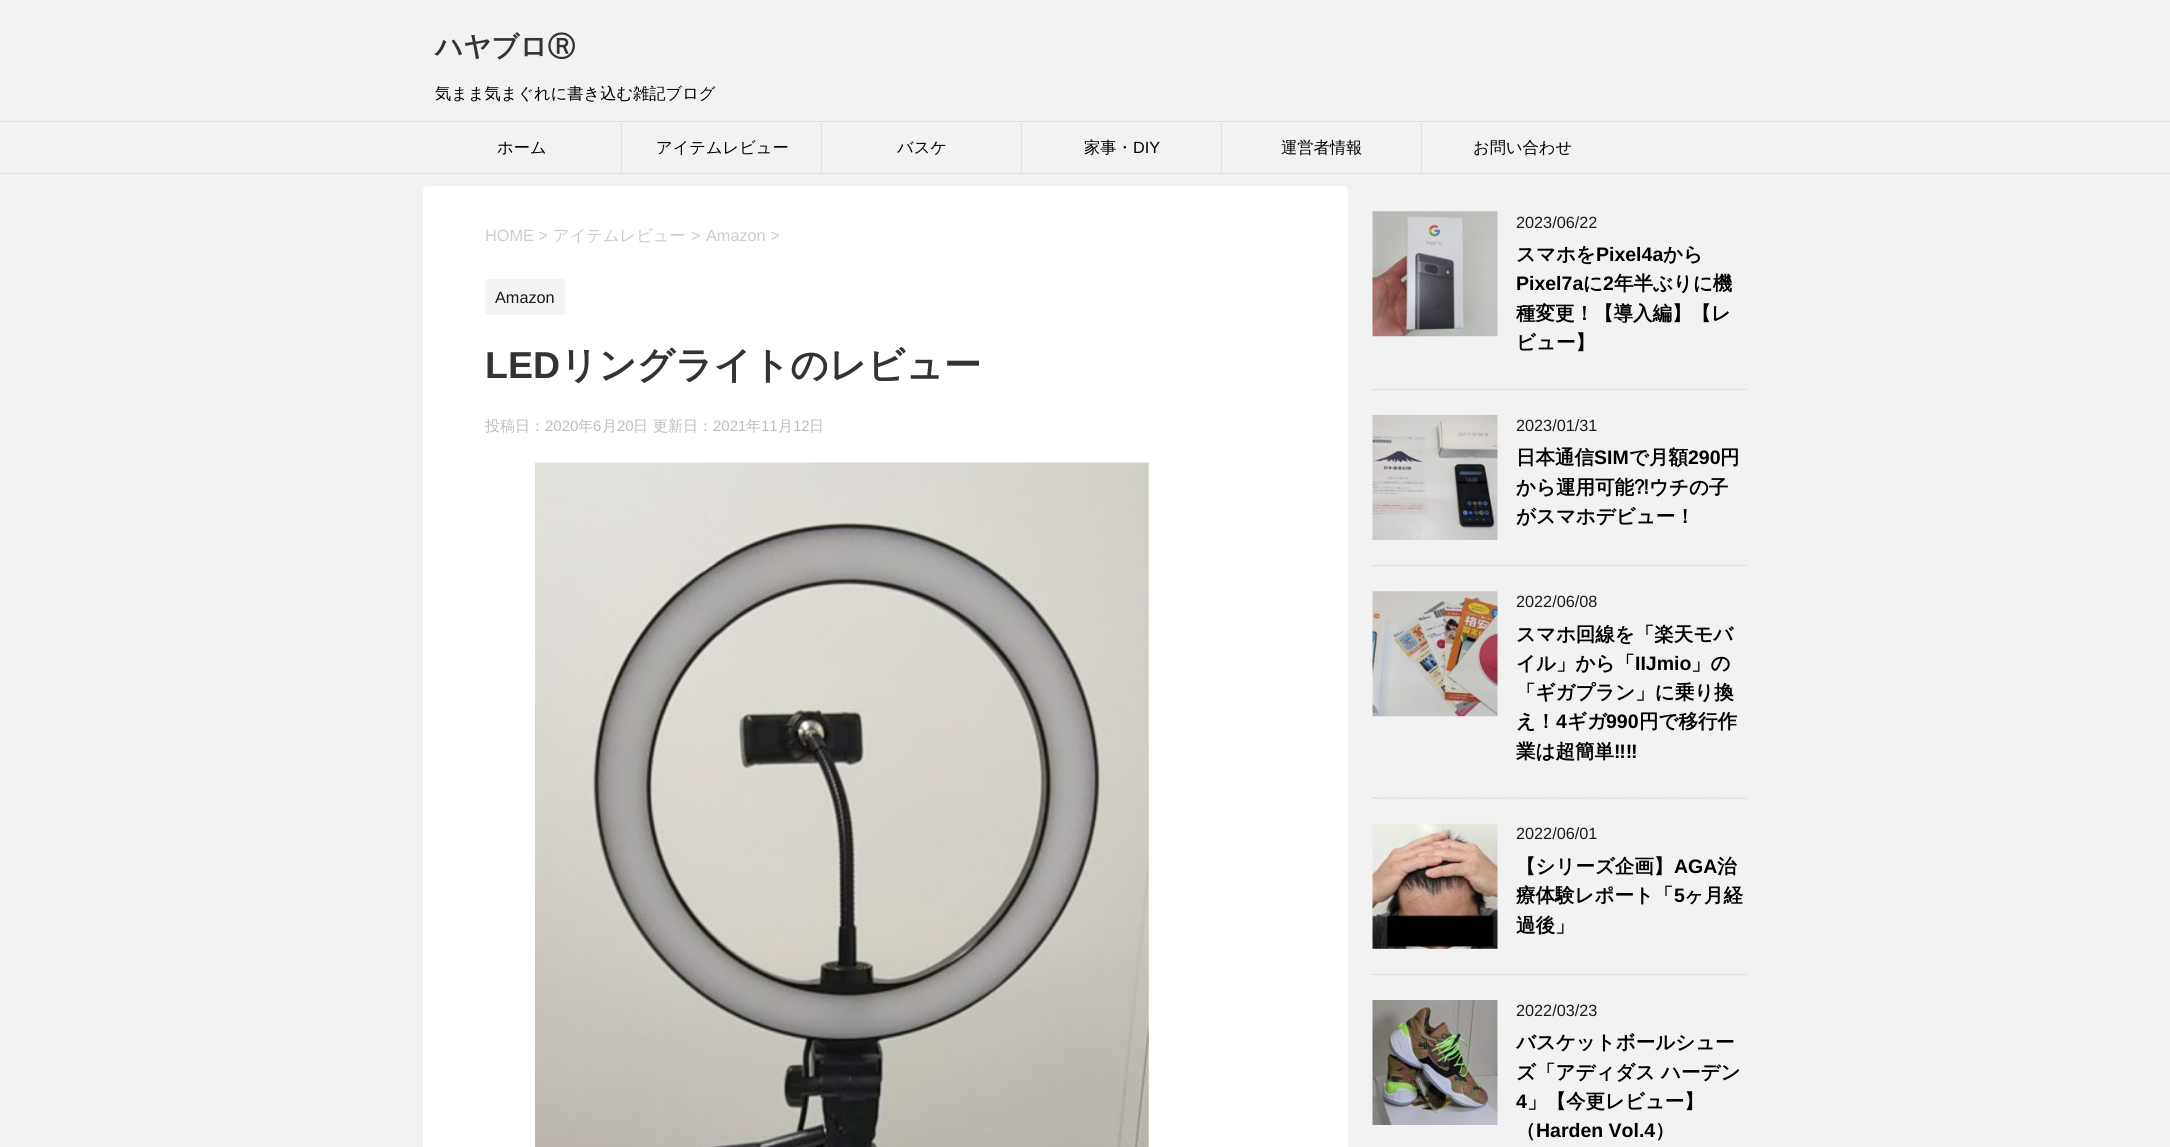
#include <cairo.h>
#include <math.h>
#include <stddef.h>


static void rgb(cairo_t *cr, int r, int g, int b)
{
	cairo_set_source_rgb(cr, r / 255.0, g / 255.0, b / 255.0);
}

static void face(cairo_t *cr, const char *family, double size, int italic, int bold)
{
	cairo_select_font_face(cr, family, italic ? CAIRO_FONT_SLANT_ITALIC : CAIRO_FONT_SLANT_NORMAL,
		bold ? CAIRO_FONT_WEIGHT_BOLD : CAIRO_FONT_WEIGHT_NORMAL);
	cairo_set_font_size(cr, size);
}

static void label(cairo_t *cr, double x, double y, const char *s)
{
	cairo_move_to(cr, x, y);
	cairo_show_text(cr, s);
}

static void rect(cairo_t *cr, double x, double y, double w, double h)
{
	cairo_rectangle(cr, x, y, w, h);
	cairo_fill(cr);
}

static void rrect(cairo_t *cr, double x, double y, double w, double h, double r)
{
	cairo_new_sub_path(cr);
	cairo_arc(cr, x + w - r, y + h - r, r, 0, M_PI / 2);
	cairo_arc(cr, x + r, y + h - r, r, M_PI / 2, M_PI);
	cairo_arc(cr, x + r, y + r, r, M_PI, 1.5 * M_PI);
	cairo_arc(cr, x + w - r, y + r, r, 1.5 * M_PI, 2 * M_PI);
	cairo_close_path(cr);
}

static void image(cairo_t *cr, const char *path, double x, double y, double w, double h)
{
	cairo_surface_t *image = cairo_image_surface_create_from_png(path);
	cairo_save(cr);
	cairo_set_source_surface(cr, image, x, y);
	cairo_rectangle(cr, x, y, w, h);
	cairo_fill(cr);
	cairo_restore(cr);
	cairo_surface_destroy(image);
}

static void draw(cairo_t *cr) {
	rgb(cr, 242, 242, 242);
	cairo_paint(cr);
	face(cr, "WenQuanYi Zen Hei", 27.5, 0, 1);
	rgb(cr, 51, 51, 51);
	label(cr, 435, 56, "ハヤブロⓇ");
	face(cr, "WenQuanYi Zen Hei Medium", 16.25, 0, 0);
	rgb(cr, 0, 0, 0);
	label(cr, 435, 99, "気まま気まぐれに書き込む雑記ブログ");
	rgb(cr, 224, 222, 222);
	rect(cr, 0, 121, 2170, 1);
	rect(cr, 0, 173, 2170, 1);
	rect(cr, 621, 123, 1, 50);
	rgb(cr, 0, 0, 0);
	label(cr, 497, 153, "ホーム");
	rgb(cr, 224, 222, 222);
	rect(cr, 821, 123, 1, 50);
	rgb(cr, 0, 0, 0);
	label(cr, 656, 153, "アイテムレビュー");
	rgb(cr, 224, 222, 222);
	rect(cr, 1021, 123, 1, 50);
	rgb(cr, 0, 0, 0);
	label(cr, 897, 153, "バスケ");
	rgb(cr, 224, 222, 222);
	rect(cr, 1221, 123, 1, 50);
	rgb(cr, 0, 0, 0);
	label(cr, 1084, 153, "家事・");
	face(cr, "Liberation Sans", 16.25, 0, 0);
	label(cr, 1133, 153, "DIY");
	rgb(cr, 224, 222, 222);
	rect(cr, 1421, 123, 1, 50);
	face(cr, "WenQuanYi Zen Hei Medium", 16.25, 0, 0);
	rgb(cr, 0, 0, 0);
	label(cr, 1281, 153, "運営者情報");
	label(cr, 1473, 153, "お問い合わせ");
	rgb(cr, 255, 255, 255);
	rrect(cr, 423, 186, 925, 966, 5);
	cairo_fill(cr);
	face(cr, "Liberation Sans", 16.25, 0, 0);
	rgb(cr, 204, 204, 204);
	label(cr, 485, 241, "HOME >");
	face(cr, "WenQuanYi Zen Hei Medium", 16.25, 0, 0);
	label(cr, 553, 241, "アイテムレビュー");
	face(cr, "Liberation Sans", 16.25, 0, 0);
	label(cr, 691, 241, ">");
	label(cr, 706, 241, "Amazon >");
	rgb(cr, 243, 243, 243);
	rrect(cr, 485, 279, 80, 36, 2.5);
	cairo_fill(cr);
	rgb(cr, 26, 26, 26);
	label(cr, 495, 303, "Amazon");
	face(cr, "Liberation Sans", 37.5, 0, 1);
	rgb(cr, 51, 51, 51);
	label(cr, 485, 378, "LED");
	face(cr, "WenQuanYi Zen Hei", 37.5, 0, 1);
	label(cr, 560, 378, "リングライトのレビュー");
	face(cr, "WenQuanYi Zen Hei Medium", 15, 0, 0);
	rgb(cr, 189, 189, 189);
	label(cr, 485, 431, "投稿日：");
	face(cr, "Liberation Sans", 15, 0, 0);
	label(cr, 545, 431, "2020");
	face(cr, "WenQuanYi Zen Hei Medium", 15, 0, 0);
	label(cr, 578, 431, "年");
	face(cr, "Liberation Sans", 15, 0, 0);
	label(cr, 593, 431, "6");
	face(cr, "WenQuanYi Zen Hei Medium", 15, 0, 0);
	label(cr, 602, 431, "月");
	face(cr, "Liberation Sans", 15, 0, 0);
	label(cr, 617, 431, "20");
	face(cr, "WenQuanYi Zen Hei Medium", 15, 0, 0);
	label(cr, 633, 431, "日");
	label(cr, 653, 431, "更新日：");
	face(cr, "Liberation Sans", 15, 0, 0);
	label(cr, 713, 431, "2021");
	face(cr, "WenQuanYi Zen Hei Medium", 15, 0, 0);
	label(cr, 746, 431, "年");
	face(cr, "Liberation Sans", 15, 0, 0);
	label(cr, 761, 431, "11");
	face(cr, "WenQuanYi Zen Hei Medium", 15, 0, 0);
	label(cr, 778, 431, "月");
	face(cr, "Liberation Sans", 15, 0, 0);
	label(cr, 793, 431, "12");
	face(cr, "WenQuanYi Zen Hei Medium", 15, 0, 0);
	label(cr, 809, 431, "日");
	image(cr, "image0.png", 535, 462, 614, 685);
	cairo_new_path(cr);
	cairo_move_to(cr, 1372.5, 389.5);
	cairo_line_to(cr, 1747.5, 389.5);
	rgb(cr, 204, 204, 204);
	cairo_set_line_width(cr, 1.2);
	cairo_set_dash(cr, (double[]){1.25, 1.25}, 2, 0);
	cairo_stroke(cr);
	image(cr, "image1.png", 1372, 211, 126, 126);
	face(cr, "Liberation Sans", 16.25, 0, 0);
	rgb(cr, 26, 26, 26);
	label(cr, 1516, 228, "2023/06/22");
	face(cr, "WenQuanYi Zen Hei", 19.5, 0, 1);
	rgb(cr, 0, 0, 0);
	label(cr, 1516, 261, "スマホを");
	face(cr, "Liberation Sans", 19.5, 0, 1);
	label(cr, 1596, 261, "Pixel4a");
	face(cr, "WenQuanYi Zen Hei", 19.5, 0, 1);
	label(cr, 1663, 261, "から");
	face(cr, "Liberation Sans", 19.5, 0, 1);
	label(cr, 1516, 290, "Pixel7a");
	face(cr, "WenQuanYi Zen Hei", 19.5, 0, 1);
	label(cr, 1583, 290, "に");
	face(cr, "Liberation Sans", 19.5, 0, 1);
	label(cr, 1603, 290, "2");
	face(cr, "WenQuanYi Zen Hei", 19.5, 0, 1);
	label(cr, 1614, 290, "年半ぶりに機");
	label(cr, 1516, 320, "種変更！【導入編】【レ");
	label(cr, 1516, 349, "ビュー】");
	cairo_new_path(cr);
	cairo_move_to(cr, 1372.5, 565.5);
	cairo_line_to(cr, 1747.5, 565.5);
	rgb(cr, 204, 204, 204);
	cairo_stroke(cr);
	image(cr, "image2.png", 1372, 415, 126, 125);
	face(cr, "Liberation Sans", 16.25, 0, 0);
	rgb(cr, 26, 26, 26);
	label(cr, 1516, 431, "2023/01/31");
	face(cr, "WenQuanYi Zen Hei", 19.5, 0, 1);
	rgb(cr, 0, 0, 0);
	label(cr, 1516, 464, "日本通信");
	face(cr, "Liberation Sans", 19.5, 0, 1);
	label(cr, 1594, 464, "SIM");
	face(cr, "WenQuanYi Zen Hei", 19.5, 0, 1);
	label(cr, 1629, 464, "で月額");
	face(cr, "Liberation Sans", 19.5, 0, 1);
	label(cr, 1688, 464, "290");
	face(cr, "WenQuanYi Zen Hei", 19.5, 0, 1);
	label(cr, 1720, 464, "円");
	label(cr, 1516, 494, "から運用可能");
	face(cr, "IPAPGothic", 19.5, 0, 1);
	label(cr, 1634, 494, "⁈");
	face(cr, "WenQuanYi Zen Hei", 19.5, 0, 1);
	label(cr, 1649, 494, "ウチの子");
	label(cr, 1516, 523, "がスマホデビュー！");
	cairo_new_path(cr);
	cairo_move_to(cr, 1372.5, 798);
	cairo_line_to(cr, 1747.5, 798);
	rgb(cr, 204, 204, 204);
	cairo_stroke(cr);
	image(cr, "image3.png", 1372, 591, 126, 126);
	face(cr, "Liberation Sans", 16.25, 0, 0);
	rgb(cr, 26, 26, 26);
	label(cr, 1516, 607, "2022/06/08");
	face(cr, "WenQuanYi Zen Hei", 19.5, 0, 1);
	rgb(cr, 0, 0, 0);
	label(cr, 1516, 641, "スマホ回線を「楽天モバ");
	label(cr, 1516, 670, "イル」から「");
	face(cr, "Liberation Sans", 19.5, 0, 1);
	label(cr, 1635, 670, "IIJmio");
	face(cr, "WenQuanYi Zen Hei", 19.5, 0, 1);
	label(cr, 1691, 670, "」の");
	label(cr, 1516, 699, "「ギガプラン」に乗り換");
	label(cr, 1516, 728, "え！");
	face(cr, "Liberation Sans", 19.5, 0, 1);
	label(cr, 1556, 728, "4");
	face(cr, "WenQuanYi Zen Hei", 19.5, 0, 1);
	label(cr, 1567, 728, "ギガ");
	face(cr, "Liberation Sans", 19.5, 0, 1);
	label(cr, 1606, 728, "990");
	face(cr, "WenQuanYi Zen Hei", 19.5, 0, 1);
	label(cr, 1639, 728, "円で移行作");
	label(cr, 1516, 758, "業は超簡単");
	face(cr, "Liberation Sans", 19.5, 0, 1);
	label(cr, 1614, 758, "‼‼");
	cairo_new_path(cr);
	cairo_move_to(cr, 1372.5, 974.5);
	cairo_line_to(cr, 1747.5, 974.5);
	rgb(cr, 204, 204, 204);
	cairo_stroke(cr);
	image(cr, "image4.png", 1372, 823, 126, 126);
	face(cr, "Liberation Sans", 16.25, 0, 0);
	rgb(cr, 26, 26, 26);
	label(cr, 1516, 839, "2022/06/01");
	face(cr, "WenQuanYi Zen Hei", 19.5, 0, 1);
	rgb(cr, 0, 0, 0);
	label(cr, 1516, 873, "【シリーズ企画】");
	face(cr, "Liberation Sans", 19.5, 0, 1);
	label(cr, 1674, 873, "AGA");
	face(cr, "WenQuanYi Zen Hei", 19.5, 0, 1);
	label(cr, 1717, 873, "治");
	label(cr, 1516, 902, "療体験レポート「");
	face(cr, "Liberation Sans", 19.5, 0, 1);
	label(cr, 1674, 902, "5");
	face(cr, "WenQuanYi Zen Hei", 19.5, 0, 1);
	label(cr, 1684, 902, "ヶ月経");
	label(cr, 1516, 932, "過後」");
	image(cr, "image5.png", 1372, 1000, 126, 125);
	face(cr, "Liberation Sans", 16.25, 0, 0);
	rgb(cr, 26, 26, 26);
	label(cr, 1516, 1016, "2022/03/23");
	face(cr, "WenQuanYi Zen Hei", 19.5, 0, 1);
	rgb(cr, 0, 0, 0);
	label(cr, 1516, 1049, "バスケットボールシュー");
	label(cr, 1516, 1079, "ズ「アディダス ハーデン");
	face(cr, "Liberation Sans", 19.5, 0, 1);
	label(cr, 1516, 1108, "4");
	face(cr, "WenQuanYi Zen Hei", 19.5, 0, 1);
	label(cr, 1527, 1108, "」【今更レビュー】");
	label(cr, 1516, 1137, "（");
	face(cr, "Liberation Sans", 19.5, 0, 1);
	label(cr, 1536, 1137, "Harden Vol.4");
	face(cr, "WenQuanYi Zen Hei", 19.5, 0, 1);
	label(cr, 1655, 1137, "）");
}

int main(void) {
	cairo_surface_t *surface = cairo_image_surface_create(CAIRO_FORMAT_RGB24, 2170, 1147);
	cairo_t *cr = cairo_create(surface);
	cairo_font_options_t *options = cairo_font_options_create();
	cairo_font_options_set_hint_metrics(options, CAIRO_HINT_METRICS_OFF);
	cairo_font_options_set_hint_style(options, CAIRO_HINT_STYLE_NONE);
	cairo_set_font_options(cr, options);
	cairo_set_miter_limit(cr, 4);
	draw(cr);
	cairo_surface_write_to_png(surface, "render.png");
	cairo_font_options_destroy(options);
	cairo_destroy(cr);
	cairo_surface_destroy(surface);
	return 0;
}
